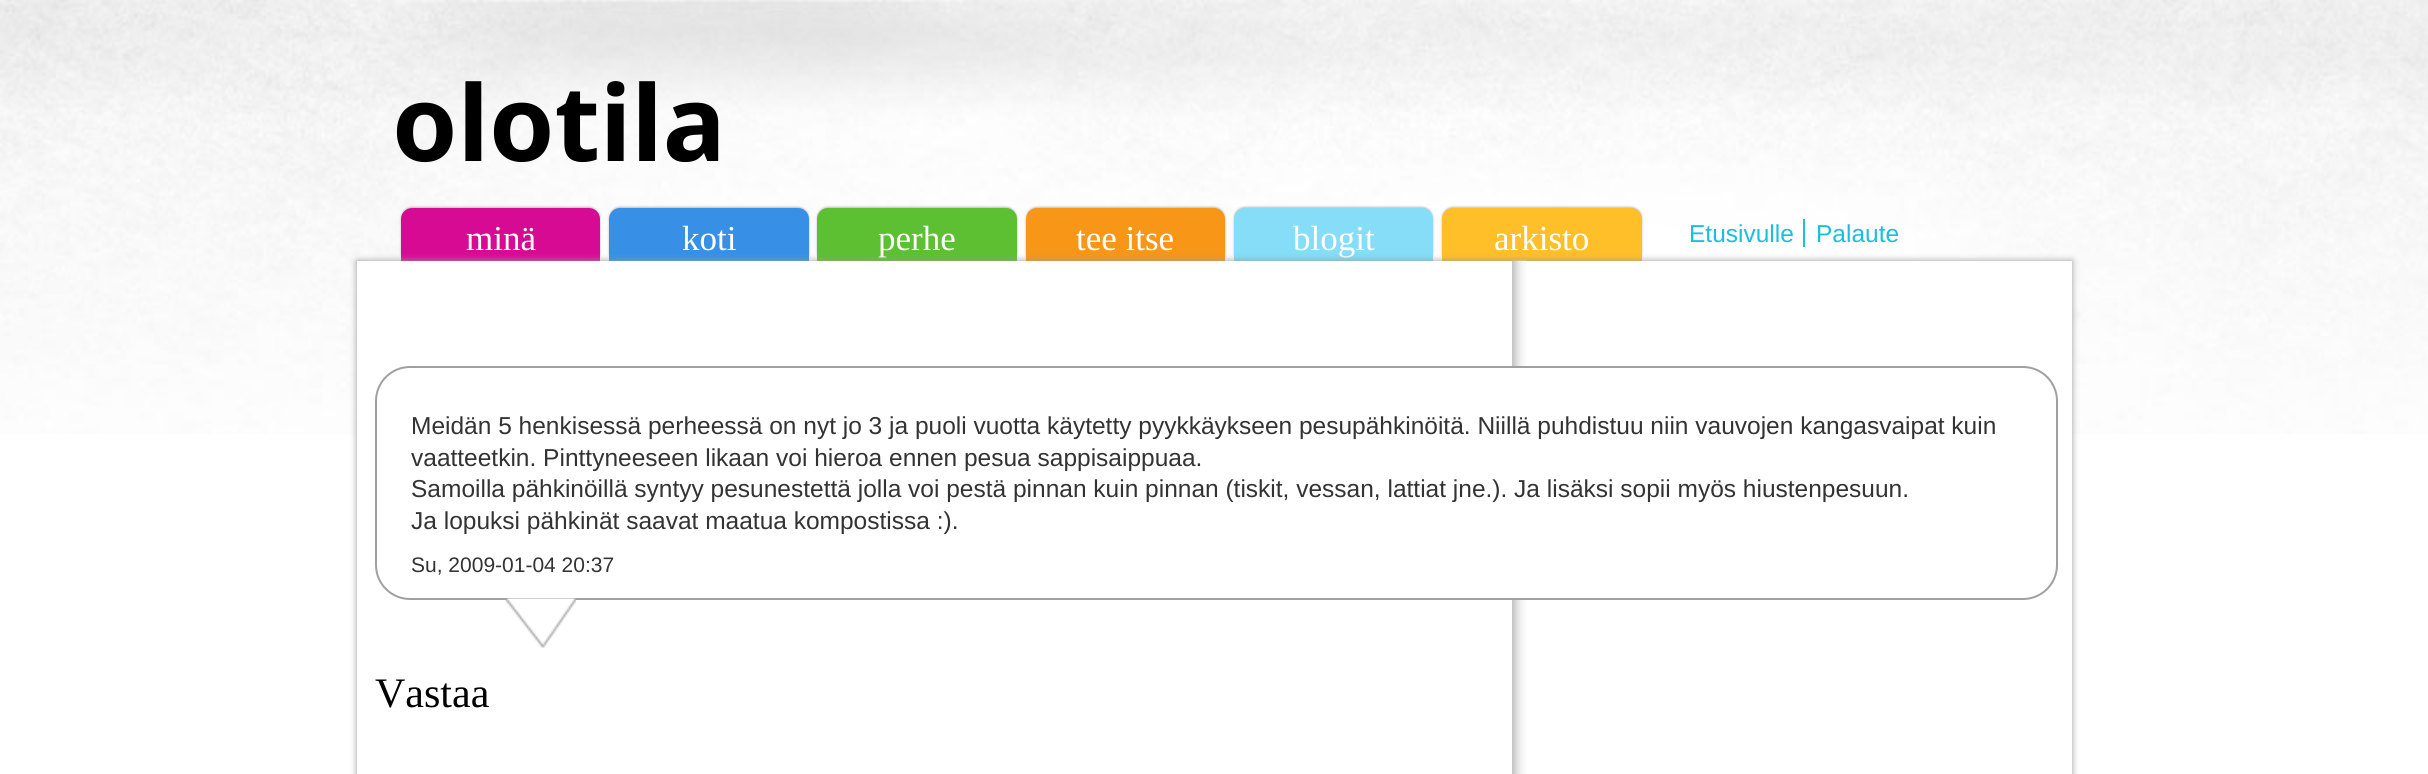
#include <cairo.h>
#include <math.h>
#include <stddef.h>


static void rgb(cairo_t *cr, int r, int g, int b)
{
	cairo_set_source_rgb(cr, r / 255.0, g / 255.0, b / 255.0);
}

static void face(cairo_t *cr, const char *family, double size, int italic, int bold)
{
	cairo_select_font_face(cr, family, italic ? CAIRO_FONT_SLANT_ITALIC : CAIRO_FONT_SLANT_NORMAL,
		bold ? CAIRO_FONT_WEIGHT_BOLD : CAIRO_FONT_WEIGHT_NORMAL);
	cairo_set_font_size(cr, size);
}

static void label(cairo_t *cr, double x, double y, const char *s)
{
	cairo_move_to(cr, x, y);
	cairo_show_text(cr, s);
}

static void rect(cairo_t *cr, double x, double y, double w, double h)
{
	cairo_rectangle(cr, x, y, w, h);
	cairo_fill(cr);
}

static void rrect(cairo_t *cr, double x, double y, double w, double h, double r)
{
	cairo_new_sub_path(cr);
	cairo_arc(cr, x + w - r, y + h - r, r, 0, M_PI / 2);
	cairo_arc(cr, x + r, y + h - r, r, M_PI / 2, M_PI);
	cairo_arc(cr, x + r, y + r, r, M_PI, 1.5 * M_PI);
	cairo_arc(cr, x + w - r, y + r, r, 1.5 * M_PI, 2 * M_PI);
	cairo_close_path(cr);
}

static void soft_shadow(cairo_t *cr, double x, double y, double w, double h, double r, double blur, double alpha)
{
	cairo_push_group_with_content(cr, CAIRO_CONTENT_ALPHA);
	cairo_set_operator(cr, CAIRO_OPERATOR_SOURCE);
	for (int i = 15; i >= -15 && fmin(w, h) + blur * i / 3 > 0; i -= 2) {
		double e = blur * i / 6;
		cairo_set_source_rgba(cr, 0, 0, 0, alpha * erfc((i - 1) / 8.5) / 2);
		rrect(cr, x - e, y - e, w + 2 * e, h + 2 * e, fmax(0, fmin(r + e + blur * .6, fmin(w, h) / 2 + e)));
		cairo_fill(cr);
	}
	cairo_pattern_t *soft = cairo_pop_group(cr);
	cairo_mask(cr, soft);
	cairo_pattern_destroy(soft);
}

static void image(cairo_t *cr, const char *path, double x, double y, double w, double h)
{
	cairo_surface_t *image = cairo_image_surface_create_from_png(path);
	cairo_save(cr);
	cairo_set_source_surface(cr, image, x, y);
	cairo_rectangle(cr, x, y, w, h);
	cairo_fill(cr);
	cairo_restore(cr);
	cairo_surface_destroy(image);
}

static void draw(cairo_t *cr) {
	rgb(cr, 255, 255, 255);
	cairo_paint(cr);
	image(cr, "image0.png", 0, 0, 2428, 434);
	face(cr, "Noto Sans", 105, 0, 1);
	rgb(cr, 0, 0, 0);
	label(cr, 392, 161, "olotila");
	rgb(cr, 187, 187, 187);
	soft_shadow(cr, 401, 207, 199, 57, 11, 1, 1);
	rgb(cr, 215, 10, 148);
	cairo_new_path(cr);
	cairo_move_to(cr, 412, 208);
	cairo_line_to(cr, 589, 208);
	cairo_curve_to(cr, 595, 208, 600, 213, 600, 219);
	cairo_line_to(cr, 600, 266);
	cairo_line_to(cr, 401, 266);
	cairo_line_to(cr, 401, 219);
	cairo_curve_to(cr, 401, 213, 406, 208, 412, 208);
	cairo_close_path(cr);
	cairo_fill(cr);
	face(cr, "Liberation Serif", 35, 0, 0);
	rgb(cr, 255, 255, 255);
	label(cr, 466, 250, "minä");
	rgb(cr, 187, 187, 187);
	soft_shadow(cr, 609, 207, 200, 57, 11, 1, 1);
	rgb(cr, 55, 144, 230);
	cairo_new_path(cr);
	cairo_move_to(cr, 620, 208);
	cairo_line_to(cr, 798, 208);
	cairo_curve_to(cr, 804, 208, 809, 213, 809, 219);
	cairo_line_to(cr, 809, 266);
	cairo_line_to(cr, 609, 266);
	cairo_line_to(cr, 609, 219);
	cairo_curve_to(cr, 609, 213, 614, 208, 620, 208);
	cairo_close_path(cr);
	cairo_fill(cr);
	rgb(cr, 255, 255, 255);
	label(cr, 682, 250, "koti");
	rgb(cr, 187, 187, 187);
	soft_shadow(cr, 817, 207, 200, 57, 11, 1, 1);
	rgb(cr, 92, 192, 50);
	cairo_new_path(cr);
	cairo_move_to(cr, 828, 208);
	cairo_line_to(cr, 1006, 208);
	cairo_curve_to(cr, 1012, 208, 1017, 213, 1017, 219);
	cairo_line_to(cr, 1017, 266);
	cairo_line_to(cr, 817, 266);
	cairo_line_to(cr, 817, 219);
	cairo_curve_to(cr, 817, 213, 822, 208, 828, 208);
	cairo_close_path(cr);
	cairo_fill(cr);
	rgb(cr, 255, 255, 255);
	label(cr, 878, 250, "perhe");
	rgb(cr, 187, 187, 187);
	soft_shadow(cr, 1026, 207, 199, 57, 11, 1, 1);
	rgb(cr, 248, 150, 24);
	cairo_new_path(cr);
	cairo_move_to(cr, 1037, 208);
	cairo_line_to(cr, 1214, 208);
	cairo_curve_to(cr, 1220, 208, 1225, 213, 1225, 219);
	cairo_line_to(cr, 1225, 266);
	cairo_line_to(cr, 1026, 266);
	cairo_line_to(cr, 1026, 219);
	cairo_curve_to(cr, 1026, 213, 1031, 208, 1037, 208);
	cairo_close_path(cr);
	cairo_fill(cr);
	rgb(cr, 255, 255, 255);
	label(cr, 1076, 250, "tee itse");
	rgb(cr, 187, 187, 187);
	soft_shadow(cr, 1234, 207, 199, 57, 11, 1, 1);
	rgb(cr, 133, 221, 247);
	cairo_new_path(cr);
	cairo_move_to(cr, 1245, 208);
	cairo_line_to(cr, 1422, 208);
	cairo_curve_to(cr, 1428, 208, 1433, 213, 1433, 219);
	cairo_line_to(cr, 1433, 266);
	cairo_line_to(cr, 1234, 266);
	cairo_line_to(cr, 1234, 219);
	cairo_curve_to(cr, 1234, 213, 1239, 208, 1245, 208);
	cairo_close_path(cr);
	cairo_fill(cr);
	rgb(cr, 255, 255, 255);
	label(cr, 1293, 250, "blogit");
	rgb(cr, 187, 187, 187);
	soft_shadow(cr, 1442, 207, 200, 57, 11, 1, 1);
	rgb(cr, 255, 191, 40);
	cairo_new_path(cr);
	cairo_move_to(cr, 1453, 208);
	cairo_line_to(cr, 1631, 208);
	cairo_curve_to(cr, 1637, 208, 1642, 213, 1642, 219);
	cairo_line_to(cr, 1642, 266);
	cairo_line_to(cr, 1442, 266);
	cairo_line_to(cr, 1442, 219);
	cairo_curve_to(cr, 1442, 213, 1447, 208, 1453, 208);
	cairo_close_path(cr);
	cairo_fill(cr);
	rgb(cr, 255, 255, 255);
	label(cr, 1494, 250, "arkisto");
	face(cr, "Liberation Sans", 24.5, 0, 0);
	rgb(cr, 24, 191, 222);
	label(cr, 1689, 242, "Etusivulle");
	rect(cr, 1803, 219, 2, 28);
	label(cr, 1816, 242, "Palaute");
	rgb(cr, 153, 153, 153);
	soft_shadow(cr, 357, 261, 1715, 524, 0, 3.5, 1);
	rgb(cr, 255, 255, 255);
	rect(cr, 357, 261, 1715, 513);
	image(cr, "image1.png", 1512, 260, 14, 514);
	rrect(cr, 376, 367, 1681, 232, 34);
	cairo_fill_preserve(cr);
	rgb(cr, 160, 160, 160);
	cairo_stroke(cr);
	rgb(cr, 51, 51, 51);
	label(cr, 411, 434, "Meidän 5 henkisessä perheessä on nyt jo 3 ja puoli vuotta käytetty pyykkäykseen pesupähkinöitä. Niillä puhdistuu niin vauvojen kangasvaipat kuin");
	label(cr, 411, 466, "vaatteetkin. Pinttyneeseen likaan voi hieroa ennen pesua sappisaippuaa.");
	label(cr, 411, 497, "Samoilla pähkinöillä syntyy pesunestettä jolla voi pestä pinnan kuin pinnan (tiskit, vessan, lattiat jne.). Ja lisäksi sopii myös hiustenpesuun.");
	label(cr, 411, 529, "Ja lopuksi pähkinät saavat maatua kompostissa :).");
	face(cr, "Liberation Sans", 21, 0, 0);
	label(cr, 411, 572, "Su, 2009-01-04 20:37");
	image(cr, "image2.png", 505, 598, 71, 50);
	face(cr, "Liberation Serif", 42, 0, 0);
	rgb(cr, 0, 0, 0);
	label(cr, 375, 707, "Vastaa");
}

int main(void) {
	cairo_surface_t *surface = cairo_image_surface_create(CAIRO_FORMAT_RGB24, 2428, 774);
	cairo_t *cr = cairo_create(surface);
	cairo_font_options_t *options = cairo_font_options_create();
	cairo_font_options_set_hint_metrics(options, CAIRO_HINT_METRICS_OFF);
	cairo_font_options_set_hint_style(options, CAIRO_HINT_STYLE_NONE);
	cairo_set_font_options(cr, options);
	cairo_set_miter_limit(cr, 4);
	draw(cr);
	cairo_surface_write_to_png(surface, "render.png");
	cairo_font_options_destroy(options);
	cairo_destroy(cr);
	cairo_surface_destroy(surface);
	return 0;
}
